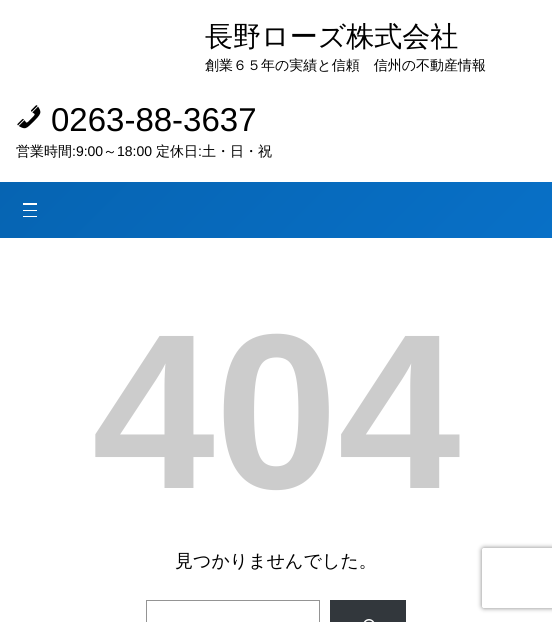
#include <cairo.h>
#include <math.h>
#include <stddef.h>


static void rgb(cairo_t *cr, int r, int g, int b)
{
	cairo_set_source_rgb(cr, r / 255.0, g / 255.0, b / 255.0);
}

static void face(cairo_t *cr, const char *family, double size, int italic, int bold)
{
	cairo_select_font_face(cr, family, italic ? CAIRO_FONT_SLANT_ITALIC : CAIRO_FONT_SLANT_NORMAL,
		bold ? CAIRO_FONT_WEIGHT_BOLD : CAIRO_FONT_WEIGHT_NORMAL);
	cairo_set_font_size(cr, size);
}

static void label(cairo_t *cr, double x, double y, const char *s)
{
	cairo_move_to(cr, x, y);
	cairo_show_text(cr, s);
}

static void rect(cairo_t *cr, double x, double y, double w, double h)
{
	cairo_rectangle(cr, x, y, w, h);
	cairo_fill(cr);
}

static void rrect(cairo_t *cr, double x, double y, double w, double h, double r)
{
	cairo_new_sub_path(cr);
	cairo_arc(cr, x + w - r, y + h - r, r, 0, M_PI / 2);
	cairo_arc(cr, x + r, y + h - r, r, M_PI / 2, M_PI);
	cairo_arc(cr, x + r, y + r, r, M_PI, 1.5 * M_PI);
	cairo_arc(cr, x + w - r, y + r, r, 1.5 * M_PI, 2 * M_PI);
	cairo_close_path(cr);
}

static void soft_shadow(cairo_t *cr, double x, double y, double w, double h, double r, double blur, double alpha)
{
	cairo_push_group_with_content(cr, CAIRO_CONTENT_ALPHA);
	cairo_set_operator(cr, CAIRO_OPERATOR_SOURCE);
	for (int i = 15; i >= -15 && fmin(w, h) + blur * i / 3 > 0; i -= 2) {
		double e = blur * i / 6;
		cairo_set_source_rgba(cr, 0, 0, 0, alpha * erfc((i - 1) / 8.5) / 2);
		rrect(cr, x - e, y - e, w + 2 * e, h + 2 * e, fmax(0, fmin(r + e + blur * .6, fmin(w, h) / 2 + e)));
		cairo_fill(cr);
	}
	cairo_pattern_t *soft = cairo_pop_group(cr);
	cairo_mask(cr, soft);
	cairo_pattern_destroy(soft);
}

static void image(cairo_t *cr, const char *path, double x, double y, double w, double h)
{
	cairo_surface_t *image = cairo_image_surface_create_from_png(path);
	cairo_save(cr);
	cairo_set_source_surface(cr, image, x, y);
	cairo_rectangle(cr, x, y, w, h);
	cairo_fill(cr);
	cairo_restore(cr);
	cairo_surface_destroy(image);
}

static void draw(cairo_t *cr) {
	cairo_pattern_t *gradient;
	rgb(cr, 255, 255, 255);
	cairo_paint(cr);
	face(cr, "WenQuanYi Zen Hei Medium", 28, 0, 0);
	rgb(cr, 0, 0, 0);
	label(cr, 205, 46, "長野ローズ株式会社");
	face(cr, "WenQuanYi Zen Hei Medium", 14, 0, 0);
	label(cr, 205, 70, "創業６５年の実績と信頼　信州の不動産情報");
	image(cr, "image0.png", 17, 105, 24, 24);
	face(cr, "Liberation Sans", 33, 0, 0);
	label(cr, 51, 131, "0263-88-3637");
	face(cr, "WenQuanYi Zen Hei Medium", 14, 0, 0);
	label(cr, 16, 156, "営業時間");
	face(cr, "Liberation Sans", 14, 0, 0);
	label(cr, 72, 156, ":9:00");
	face(cr, "WenQuanYi Zen Hei Medium", 14, 0, 0);
	label(cr, 103, 156, "～");
	face(cr, "Liberation Sans", 14, 0, 0);
	label(cr, 117, 156, "18:00");
	face(cr, "WenQuanYi Zen Hei Medium", 14, 0, 0);
	label(cr, 156, 156, "定休日");
	face(cr, "Liberation Sans", 14, 0, 0);
	label(cr, 198, 156, ":");
	face(cr, "WenQuanYi Zen Hei Medium", 14, 0, 0);
	label(cr, 202, 156, "土・日・祝");
	gradient = cairo_pattern_create_linear(124, 58, 428, 362);
	cairo_pattern_add_color_stop_rgba(gradient, 0, 0.024, 0.392, 0.698, 1);
	cairo_pattern_add_color_stop_rgba(gradient, 1, 0.031, 0.439, 0.78, 1);
	cairo_set_source(cr, gradient);
	cairo_pattern_destroy(gradient);
	rect(cr, 0, 182, 552, 56);
	rgb(cr, 255, 255, 254);
	rect(cr, 23, 203, 14, 2);
	rect(cr, 23, 210, 14, 1);
	rect(cr, 23, 216, 14, 1);
	face(cr, "Liberation Sans", 221, 0, 1);
	rgb(cr, 204, 204, 204);
	label(cr, 92, 488, "404");
	face(cr, "WenQuanYi Zen Hei Medium", 18, 0, 0);
	rgb(cr, 0, 0, 0);
	label(cr, 175, 567, "見つかりませんでした。");
	cairo_rectangle(cr, 146.5, 600.5, 173, 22);
	rgb(cr, 148, 148, 148);
	cairo_set_line_width(cr, 1);
	cairo_stroke(cr);
	rgb(cr, 50, 55, 60);
	rect(cr, 330, 600, 76, 22);
	image(cr, "image1.png", 363, 619, 12, 3);
	cairo_save(cr);
	cairo_set_fill_rule(cr, CAIRO_FILL_RULE_EVEN_ODD);
	cairo_new_path(cr);
	cairo_move_to(cr, 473, 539);
	cairo_line_to(cr, 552, 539);
	cairo_line_to(cr, 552, 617);
	cairo_line_to(cr, 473, 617);
	cairo_close_path(cr);
	cairo_move_to(cr, 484, 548);
	cairo_line_to(cr, 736, 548);
	cairo_curve_to(cr, 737, 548, 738, 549, 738, 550);
	cairo_line_to(cr, 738, 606);
	cairo_curve_to(cr, 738, 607, 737, 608, 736, 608);
	cairo_line_to(cr, 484, 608);
	cairo_curve_to(cr, 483, 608, 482, 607, 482, 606);
	cairo_line_to(cr, 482, 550);
	cairo_curve_to(cr, 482, 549, 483, 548, 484, 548);
	cairo_close_path(cr);
	cairo_clip(cr);
	rgb(cr, 128, 128, 128);
	soft_shadow(cr, 482, 548, 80, 60, 2, 2.5, 1);
	cairo_restore(cr);
}

int main(void) {
	cairo_surface_t *surface = cairo_image_surface_create(CAIRO_FORMAT_RGB24, 552, 622);
	cairo_t *cr = cairo_create(surface);
	cairo_font_options_t *options = cairo_font_options_create();
	cairo_font_options_set_hint_metrics(options, CAIRO_HINT_METRICS_OFF);
	cairo_font_options_set_hint_style(options, CAIRO_HINT_STYLE_NONE);
	cairo_set_font_options(cr, options);
	cairo_set_miter_limit(cr, 4);
	draw(cr);
	cairo_surface_write_to_png(surface, "render.png");
	cairo_font_options_destroy(options);
	cairo_destroy(cr);
	cairo_surface_destroy(surface);
	return 0;
}
